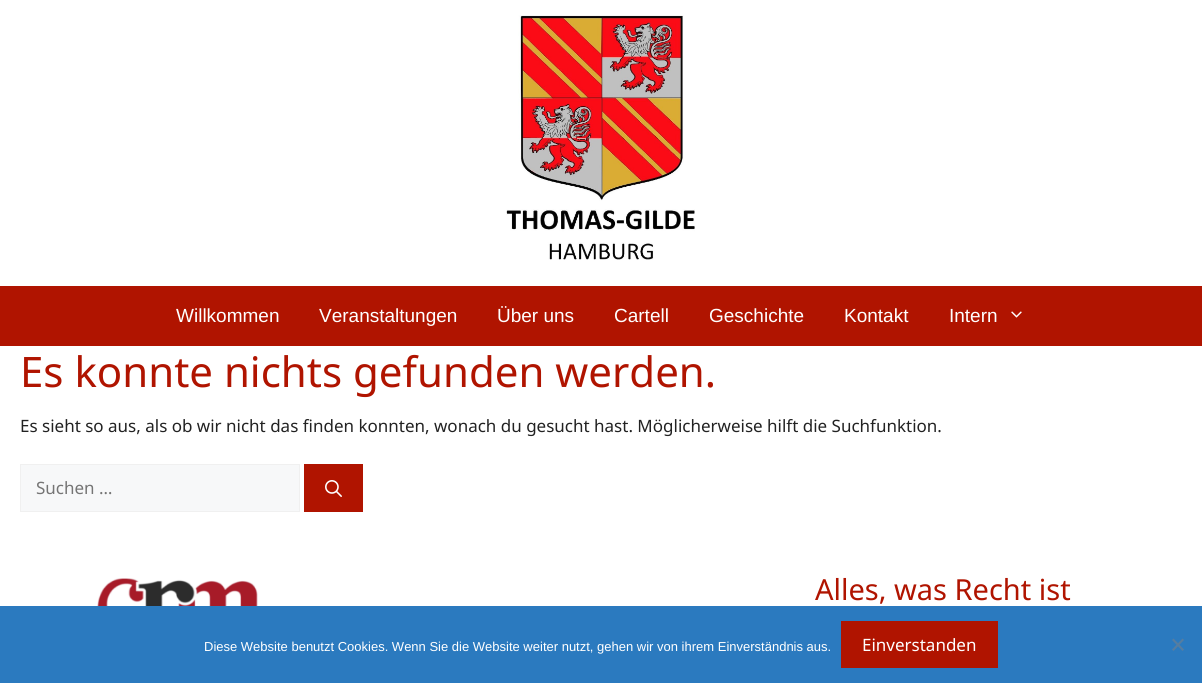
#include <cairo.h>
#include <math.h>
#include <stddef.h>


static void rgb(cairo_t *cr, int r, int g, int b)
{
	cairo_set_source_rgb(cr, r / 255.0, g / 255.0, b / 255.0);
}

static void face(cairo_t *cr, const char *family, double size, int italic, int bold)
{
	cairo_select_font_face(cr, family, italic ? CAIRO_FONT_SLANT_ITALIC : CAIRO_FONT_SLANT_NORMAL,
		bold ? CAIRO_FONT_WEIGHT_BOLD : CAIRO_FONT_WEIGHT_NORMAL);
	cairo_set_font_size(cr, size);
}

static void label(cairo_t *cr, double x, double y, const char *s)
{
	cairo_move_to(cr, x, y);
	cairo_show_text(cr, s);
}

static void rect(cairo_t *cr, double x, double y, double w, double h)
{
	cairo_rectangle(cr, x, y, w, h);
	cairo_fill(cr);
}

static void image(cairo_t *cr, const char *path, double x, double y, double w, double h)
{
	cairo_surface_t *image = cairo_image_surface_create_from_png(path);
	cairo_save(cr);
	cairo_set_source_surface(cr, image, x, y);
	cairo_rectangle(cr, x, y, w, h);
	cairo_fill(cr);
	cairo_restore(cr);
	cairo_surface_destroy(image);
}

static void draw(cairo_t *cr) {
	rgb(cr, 255, 255, 255);
	cairo_paint(cr);
	image(cr, "image0.png", 506, 15, 189, 245);
	rgb(cr, 176, 20, 0);
	rect(cr, 0, 286, 1202, 60);
	face(cr, "Liberation Sans", 19, 0, 0);
	rgb(cr, 255, 255, 255);
	label(cr, 176, 322, "Willkommen");
	label(cr, 319, 322, "Veranstaltungen");
	label(cr, 497, 322, "Über uns");
	label(cr, 614, 322, "Cartell");
	label(cr, 709, 322, "Geschichte");
	label(cr, 844, 322, "Kontakt");
	label(cr, 949, 322, "Intern");
	image(cr, "image1.png", 1011, 311, 11, 7);
	face(cr, "Noto Sans", 42, 0, 0);
	rgb(cr, 176, 20, 0);
	label(cr, 20, 387, "Es konnte nichts gefunden werden.");
	face(cr, "Noto Sans", 17, 0, 0);
	rgb(cr, 34, 34, 34);
	label(cr, 20, 432, "Es sieht so aus, als ob wir nicht das finden konnten, wonach du gesucht hast. Möglicherweise hilft die Suchfunktion.");
	rgb(cr, 247, 248, 249);
	cairo_rectangle(cr, 20.5, 464.5, 279, 47);
	cairo_fill_preserve(cr);
	rgb(cr, 240, 240, 240);
	cairo_set_line_width(cr, 1);
	cairo_stroke(cr);
	rgb(cr, 117, 117, 117);
	label(cr, 36, 494, "Suchen …");
	rgb(cr, 176, 20, 0);
	rect(cr, 304, 464, 59, 48);
	image(cr, "image2.png", 325, 480, 17, 17);
	image(cr, "image3.png", 97, 578, 232, 28);
	face(cr, "Noto Sans", 29, 0, 0);
	label(cr, 815, 600, "Alles, was Recht ist");
	rgb(cr, 43, 122, 191);
	rect(cr, 0, 606, 1202, 77);
	face(cr, "Liberation Sans", 13, 0, 0);
	rgb(cr, 255, 255, 255);
	label(cr, 204, 651, "Diese Website benutzt Cookies. Wenn Sie die Website weiter nutzt, gehen wir von ihrem Einverständnis aus.");
	rgb(cr, 176, 20, 0);
	rect(cr, 841, 621, 157, 47);
	face(cr, "Noto Sans", 17, 0, 0);
	rgb(cr, 255, 255, 255);
	label(cr, 862, 651, "Einverstanden");
	rgb(cr, 86, 125, 160);
	cairo_new_path(cr);
	cairo_move_to(cr, 1182.5, 638.5);
	cairo_line_to(cr, 1184, 640);
	cairo_line_to(cr, 1173.5, 651);
	cairo_line_to(cr, 1172, 649.5);
	cairo_close_path(cr);
	cairo_fill(cr);
	cairo_new_path(cr);
	cairo_move_to(cr, 1172, 640);
	cairo_line_to(cr, 1173.5, 638.5);
	cairo_line_to(cr, 1184, 649.5);
	cairo_line_to(cr, 1182.5, 651);
	cairo_close_path(cr);
	cairo_fill(cr);
}

int main(void) {
	cairo_surface_t *surface = cairo_image_surface_create(CAIRO_FORMAT_RGB24, 1202, 683);
	cairo_t *cr = cairo_create(surface);
	cairo_font_options_t *options = cairo_font_options_create();
	cairo_font_options_set_hint_metrics(options, CAIRO_HINT_METRICS_OFF);
	cairo_font_options_set_hint_style(options, CAIRO_HINT_STYLE_NONE);
	cairo_set_font_options(cr, options);
	cairo_set_miter_limit(cr, 4);
	draw(cr);
	cairo_surface_write_to_png(surface, "render.png");
	cairo_font_options_destroy(options);
	cairo_destroy(cr);
	cairo_surface_destroy(surface);
	return 0;
}
